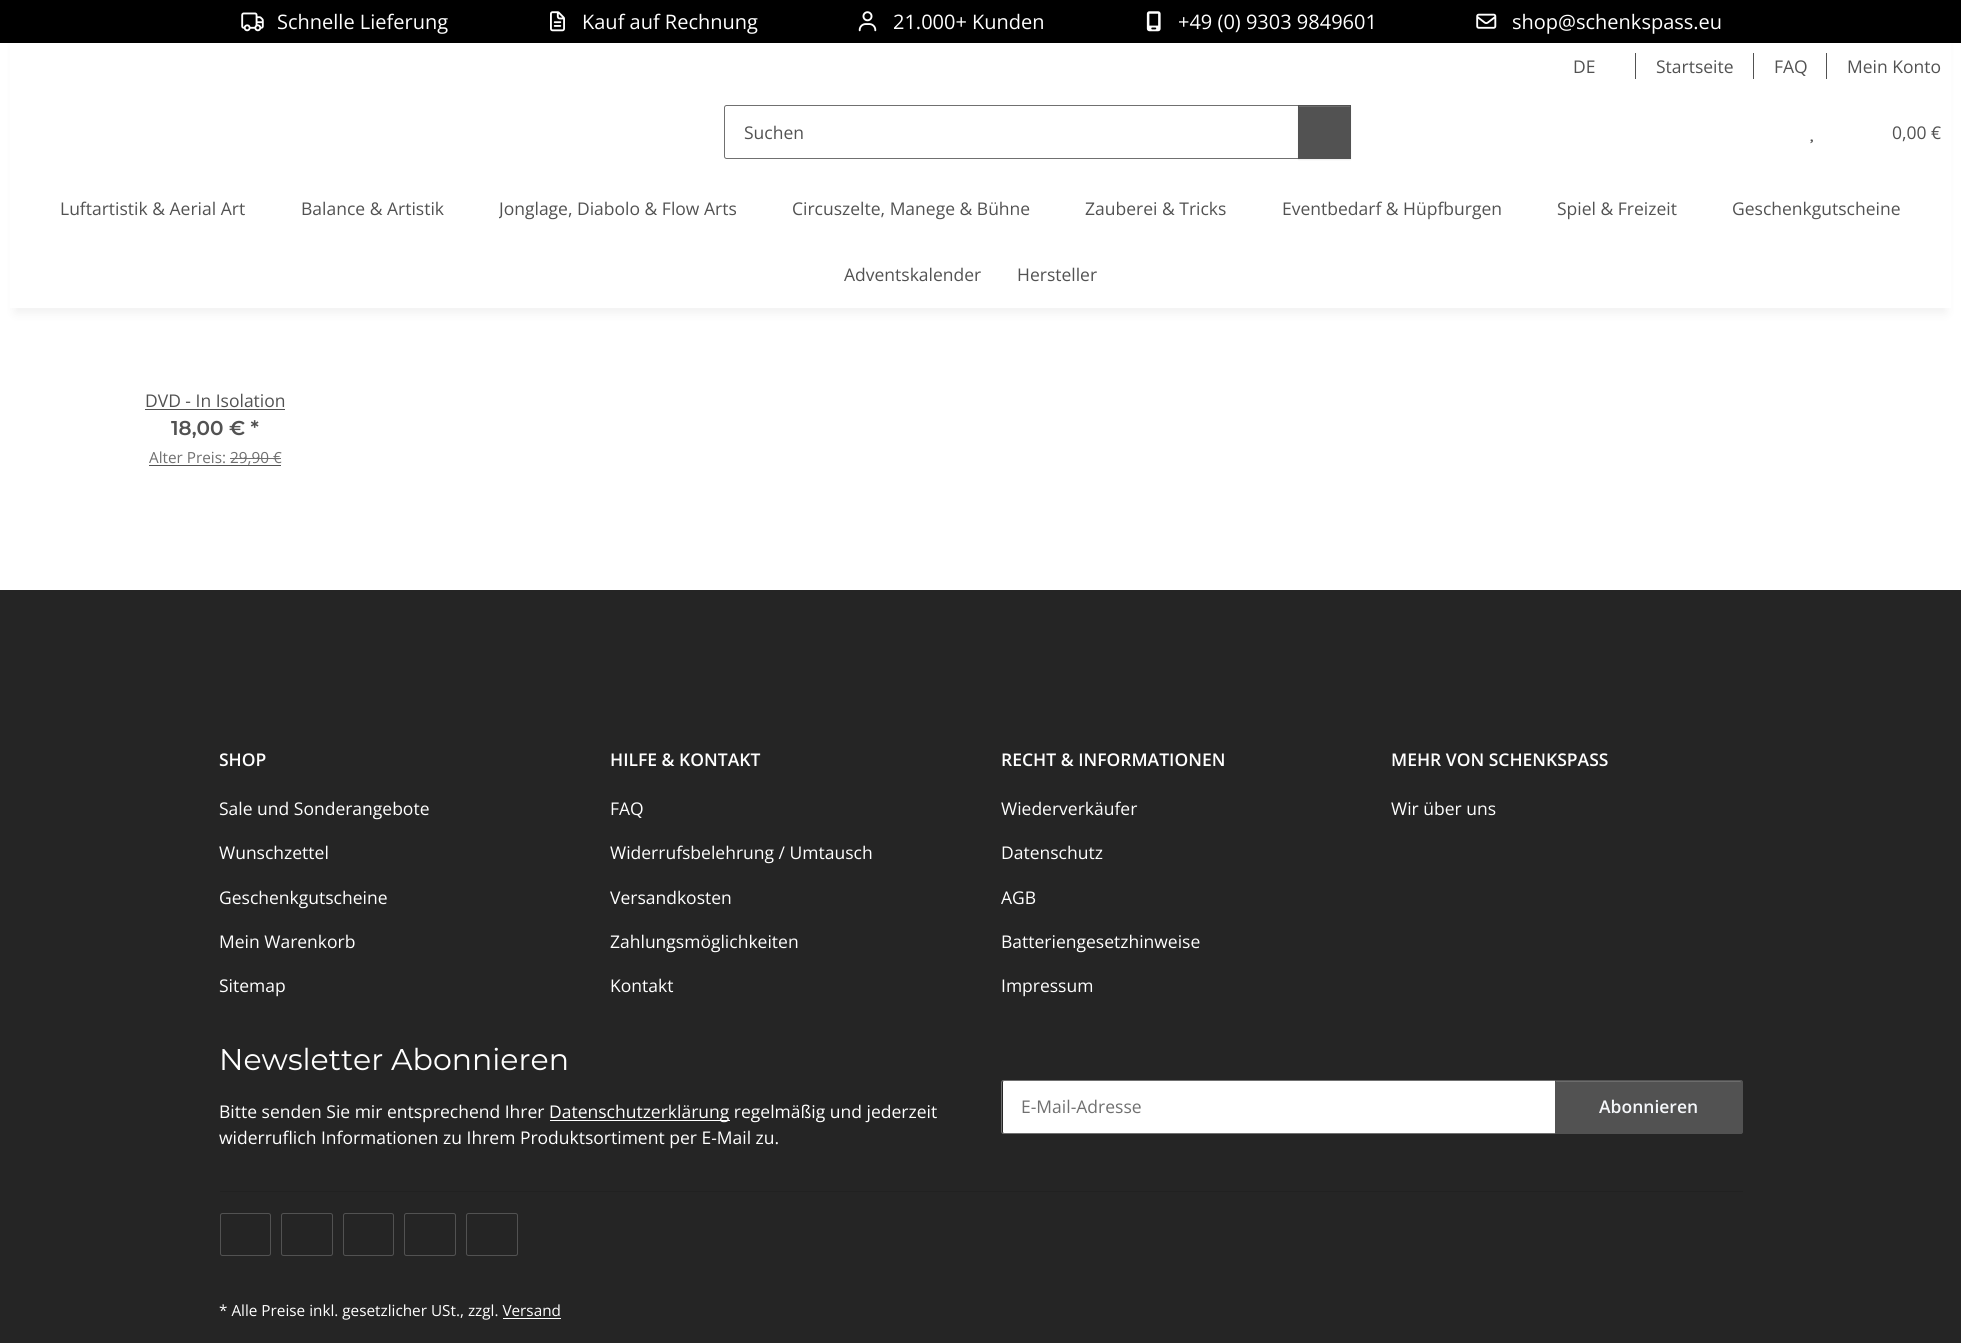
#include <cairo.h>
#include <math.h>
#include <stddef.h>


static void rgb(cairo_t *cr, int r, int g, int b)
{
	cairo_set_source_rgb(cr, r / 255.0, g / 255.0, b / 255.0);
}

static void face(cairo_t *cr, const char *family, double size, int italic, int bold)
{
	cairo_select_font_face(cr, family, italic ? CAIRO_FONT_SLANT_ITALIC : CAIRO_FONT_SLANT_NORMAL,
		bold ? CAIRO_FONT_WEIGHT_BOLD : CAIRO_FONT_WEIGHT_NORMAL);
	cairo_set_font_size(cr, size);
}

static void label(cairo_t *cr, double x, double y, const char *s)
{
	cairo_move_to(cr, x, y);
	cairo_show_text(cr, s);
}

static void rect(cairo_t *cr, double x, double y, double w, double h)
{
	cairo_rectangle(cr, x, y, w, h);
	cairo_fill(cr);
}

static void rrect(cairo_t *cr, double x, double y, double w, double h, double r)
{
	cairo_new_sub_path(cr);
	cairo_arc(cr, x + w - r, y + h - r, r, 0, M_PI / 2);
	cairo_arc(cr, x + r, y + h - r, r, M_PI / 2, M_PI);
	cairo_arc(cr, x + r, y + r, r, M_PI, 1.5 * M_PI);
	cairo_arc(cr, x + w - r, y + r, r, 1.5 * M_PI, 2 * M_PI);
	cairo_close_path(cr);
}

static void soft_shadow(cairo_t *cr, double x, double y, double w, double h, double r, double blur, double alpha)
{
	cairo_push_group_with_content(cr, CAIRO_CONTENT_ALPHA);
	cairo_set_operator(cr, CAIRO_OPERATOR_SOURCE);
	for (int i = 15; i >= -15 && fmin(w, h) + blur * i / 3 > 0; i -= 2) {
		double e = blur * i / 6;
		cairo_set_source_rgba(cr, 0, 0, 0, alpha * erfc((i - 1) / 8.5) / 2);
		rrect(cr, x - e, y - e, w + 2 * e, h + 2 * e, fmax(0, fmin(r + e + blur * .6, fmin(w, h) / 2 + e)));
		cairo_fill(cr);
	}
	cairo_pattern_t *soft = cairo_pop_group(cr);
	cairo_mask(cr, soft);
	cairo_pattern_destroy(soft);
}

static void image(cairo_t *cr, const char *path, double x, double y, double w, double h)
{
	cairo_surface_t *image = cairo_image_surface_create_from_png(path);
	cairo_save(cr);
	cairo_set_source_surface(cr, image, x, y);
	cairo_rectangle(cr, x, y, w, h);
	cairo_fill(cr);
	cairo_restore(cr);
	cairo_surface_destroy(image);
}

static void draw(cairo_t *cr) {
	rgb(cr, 255, 255, 255);
	cairo_paint(cr);
	rgb(cr, 0, 0, 0);
	soft_shadow(cr, 15, 35, 1931, 278, 0, 5.5, 0.06);
	rgb(cr, 255, 255, 255);
	rect(cr, 10, 43, 1941, 265);
	rgb(cr, 0, 0, 0);
	rect(cr, 0, 0, 1961, 43);
	image(cr, "image0.png", 241, 12, 23, 20);
	face(cr, "Open Sans", 20, 0, 0);
	rgb(cr, 255, 255, 255);
	label(cr, 277, 29, "Schnelle Lieferung");
	image(cr, "image1.png", 550, 11, 15, 21);
	label(cr, 582, 29, "Kauf auf Rechnung");
	image(cr, "image2.png", 858, 11, 19, 21);
	label(cr, 893, 29, "21.000+ Kunden");
	image(cr, "image3.png", 1146, 11, 15, 21);
	label(cr, 1178, 29, "+49 (0) 9303 9849601");
	image(cr, "image4.png", 1476, 13, 21, 16);
	label(cr, 1512, 29, "shop@schenkspass.eu");
	face(cr, "Open Sans", 17.5, 0, 0);
	rgb(cr, 82, 82, 82);
	label(cr, 1573, 73, "DE");
	rect(cr, 1635, 53, 1, 26);
	label(cr, 1656, 73, "Startseite");
	rect(cr, 1753, 53, 1, 26);
	label(cr, 1774, 73, "FAQ");
	rect(cr, 1826, 53, 1, 26);
	label(cr, 1847, 73, "Mein Konto");
	cairo_new_path(cr);
	cairo_move_to(cr, 726.5, 105.5);
	cairo_line_to(cr, 1298.5, 105.5);
	cairo_line_to(cr, 1298.5, 158.5);
	cairo_line_to(cr, 726.5, 158.5);
	cairo_curve_to(cr, 725.5, 158.5, 724.5, 157.5, 724.5, 156.5);
	cairo_line_to(cr, 724.5, 107.5);
	cairo_curve_to(cr, 724.5, 106.5, 725.5, 105.5, 726.5, 105.5);
	cairo_close_path(cr);
	rgb(cr, 112, 112, 112);
	cairo_set_line_width(cr, 1);
	cairo_stroke(cr);
	rgb(cr, 82, 82, 82);
	label(cr, 744, 139, "Suchen");
	rgb(cr, 0, 0, 0);
	soft_shadow(cr, 1298, 106, 53, 54, 0, 0.5, 0.07);
	rgb(cr, 82, 82, 82);
	rect(cr, 1298, 105, 53, 54);
	rgb(cr, 108, 108, 108);
	rect(cr, 1299, 106, 51, 1);
	image(cr, "image5.png", 1810, 139, 3, 5);
	rgb(cr, 82, 82, 82);
	label(cr, 1892, 139, "0,00 €");
	label(cr, 60, 215, "Luftartistik & Aerial Art");
	label(cr, 301, 215, "Balance & Artistik");
	cairo_save(cr);
	cairo_rectangle(cr, 499, 195, 237, 26);
	cairo_clip(cr);
	label(cr, 499, 215, "Jonglage, Diabolo & Flow Arts");
	cairo_restore(cr);
	label(cr, 792, 215, "Circuszelte, Manege & Bühne");
	label(cr, 1085, 215, "Zauberei & Tricks");
	label(cr, 1282, 215, "Eventbedarf & Hüpfburgen");
	label(cr, 1557, 215, "Spiel & Freizeit");
	label(cr, 1732, 215, "Geschenkgutscheine");
	label(cr, 844, 281, "Adventskalender");
	label(cr, 1017, 281, "Hersteller");
	label(cr, 145, 407, "DVD - In Isolation");
	rect(cr, 145, 409, 140, 1);
	face(cr, "Montserrat SemiBold", 20, 0, 0);
	label(cr, 171, 435, "18,00 € *");
	face(cr, "Open Sans", 15.3, 0, 0);
	rgb(cr, 112, 112, 112);
	label(cr, 149, 463, "Alter Preis: 29,90 €");
	rgb(cr, 82, 82, 82);
	rect(cr, 149, 465, 132, 1);
	rgb(cr, 112, 112, 112);
	rect(cr, 230, 458, 51, 1);
	rgb(cr, 37, 37, 37);
	rect(cr, 0, 590, 1961, 753);
	face(cr, "Open Sans SemiBold", 17.5, 0, 0);
	rgb(cr, 255, 255, 255);
	label(cr, 219, 766, "SHOP");
	face(cr, "Open Sans", 17.5, 0, 0);
	label(cr, 219, 815, "Sale und Sonderangebote");
	label(cr, 219, 859, "Wunschzettel");
	label(cr, 219, 904, "Geschenkgutscheine");
	label(cr, 219, 948, "Mein Warenkorb");
	label(cr, 219, 992, "Sitemap");
	face(cr, "Open Sans SemiBold", 17.5, 0, 0);
	label(cr, 610, 766, "HILFE & KONTAKT");
	face(cr, "Open Sans", 17.5, 0, 0);
	label(cr, 610, 815, "FAQ");
	label(cr, 610, 859, "Widerrufsbelehrung / Umtausch");
	label(cr, 610, 904, "Versandkosten");
	label(cr, 610, 948, "Zahlungsmöglichkeiten");
	label(cr, 610, 992, "Kontakt");
	face(cr, "Open Sans SemiBold", 17.5, 0, 0);
	label(cr, 1001, 766, "RECHT & INFORMATIONEN");
	face(cr, "Open Sans", 17.5, 0, 0);
	label(cr, 1001, 815, "Wiederverkäufer");
	label(cr, 1001, 859, "Datenschutz");
	label(cr, 1001, 904, "AGB");
	label(cr, 1001, 948, "Batteriengesetzhinweise");
	label(cr, 1001, 992, "Impressum");
	face(cr, "Open Sans SemiBold", 17.5, 0, 0);
	label(cr, 1391, 766, "MEHR VON SCHENKSPASS");
	face(cr, "Open Sans", 17.5, 0, 0);
	label(cr, 1391, 815, "Wir über uns");
	face(cr, "Montserrat", 30, 0, 0);
	label(cr, 219, 1070, "Newsletter Abonnieren");
	face(cr, "Open Sans", 17.5, 0, 0);
	label(cr, 219, 1118, "Bitte senden Sie mir entsprechend Ihrer");
	rect(cr, 550, 1120, 180, 1);
	label(cr, 549, 1118, "Datenschutzerklärung regelmäßig und jederzeit");
	label(cr, 219, 1144, "widerruflich Informationen zu Ihrem Produktsortiment per E-Mail zu.");
	cairo_new_path(cr);
	cairo_move_to(cr, 1004, 1081);
	cairo_line_to(cr, 1555, 1081);
	cairo_line_to(cr, 1555, 1133);
	cairo_line_to(cr, 1004, 1133);
	cairo_curve_to(cr, 1003.5, 1133, 1003, 1132.5, 1003, 1132);
	cairo_line_to(cr, 1003, 1082);
	cairo_curve_to(cr, 1003, 1081.5, 1003.5, 1081, 1004, 1081);
	cairo_close_path(cr);
	cairo_fill(cr);
	cairo_new_path(cr);
	cairo_move_to(cr, 1003.5, 1080.5);
	cairo_line_to(cr, 1555.5, 1080.5);
	cairo_line_to(cr, 1555.5, 1133.5);
	cairo_line_to(cr, 1003.5, 1133.5);
	cairo_curve_to(cr, 1002.5, 1133.5, 1001.5, 1132.5, 1001.5, 1131.5);
	cairo_line_to(cr, 1001.5, 1082.5);
	cairo_curve_to(cr, 1001.5, 1081.5, 1002.5, 1080.5, 1003.5, 1080.5);
	cairo_close_path(cr);
	rgb(cr, 112, 112, 112);
	cairo_stroke(cr);
	label(cr, 1021, 1113, "E-Mail-Adresse");
	rgb(cr, 82, 82, 82);
	cairo_new_path(cr);
	cairo_move_to(cr, 1555, 1080);
	cairo_line_to(cr, 1740.5, 1080);
	cairo_curve_to(cr, 1742, 1080, 1743, 1081, 1743, 1082.5);
	cairo_line_to(cr, 1743, 1131.5);
	cairo_curve_to(cr, 1743, 1133, 1742, 1134, 1740.5, 1134);
	cairo_line_to(cr, 1555, 1134);
	cairo_close_path(cr);
	cairo_fill(cr);
	rgb(cr, 108, 108, 108);
	cairo_new_path(cr);
	cairo_move_to(cr, 1556, 1082);
	cairo_line_to(cr, 1740, 1082);
	cairo_curve_to(cr, 1741, 1082, 1741, 1083, 1741, 1084);
	cairo_curve_to(cr, 1741, 1083, 1741, 1081, 1740, 1081);
	cairo_line_to(cr, 1556, 1081);
	cairo_close_path(cr);
	cairo_fill(cr);
	cairo_new_path(cr);
	cairo_move_to(cr, 1555.5, 1080.5);
	cairo_line_to(cr, 1740.5, 1080.5);
	cairo_curve_to(cr, 1741.5, 1080.5, 1742.5, 1081.5, 1742.5, 1082.5);
	cairo_line_to(cr, 1742.5, 1131.5);
	cairo_curve_to(cr, 1742.5, 1132.5, 1741.5, 1133.5, 1740.5, 1133.5);
	cairo_line_to(cr, 1555.5, 1133.5);
	cairo_close_path(cr);
	rgb(cr, 82, 82, 82);
	cairo_stroke(cr);
	face(cr, "Open Sans SemiBold", 17.5, 0, 0);
	rgb(cr, 245, 247, 250);
	label(cr, 1599, 1113, "Abonnieren");
	rgb(cr, 33, 33, 33);
	rect(cr, 220, 1191, 1523, 1);
	rrect(cr, 220.5, 1213.5, 50, 42, 2);
	rgb(cr, 82, 82, 82);
	cairo_stroke(cr);
	rrect(cr, 281.5, 1213.5, 51, 42, 2);
	cairo_stroke(cr);
	rrect(cr, 343.5, 1213.5, 50, 42, 2);
	cairo_stroke(cr);
	rrect(cr, 404.5, 1213.5, 51, 42, 2);
	cairo_stroke(cr);
	rrect(cr, 466.5, 1213.5, 51, 42, 2);
	cairo_stroke(cr);
	face(cr, "Open Sans", 15.3, 0, 0);
	rgb(cr, 255, 255, 255);
	label(cr, 219, 1316, "* Alle Preise inkl. gesetzlicher USt., zzgl. Versand");
	rect(cr, 503, 1318, 58, 1);
}

int main(void) {
	cairo_surface_t *surface = cairo_image_surface_create(CAIRO_FORMAT_RGB24, 1961, 1343);
	cairo_t *cr = cairo_create(surface);
	cairo_font_options_t *options = cairo_font_options_create();
	cairo_font_options_set_hint_metrics(options, CAIRO_HINT_METRICS_OFF);
	cairo_font_options_set_hint_style(options, CAIRO_HINT_STYLE_NONE);
	cairo_set_font_options(cr, options);
	cairo_set_miter_limit(cr, 4);
	draw(cr);
	cairo_surface_write_to_png(surface, "render.png");
	cairo_font_options_destroy(options);
	cairo_destroy(cr);
	cairo_surface_destroy(surface);
	return 0;
}
